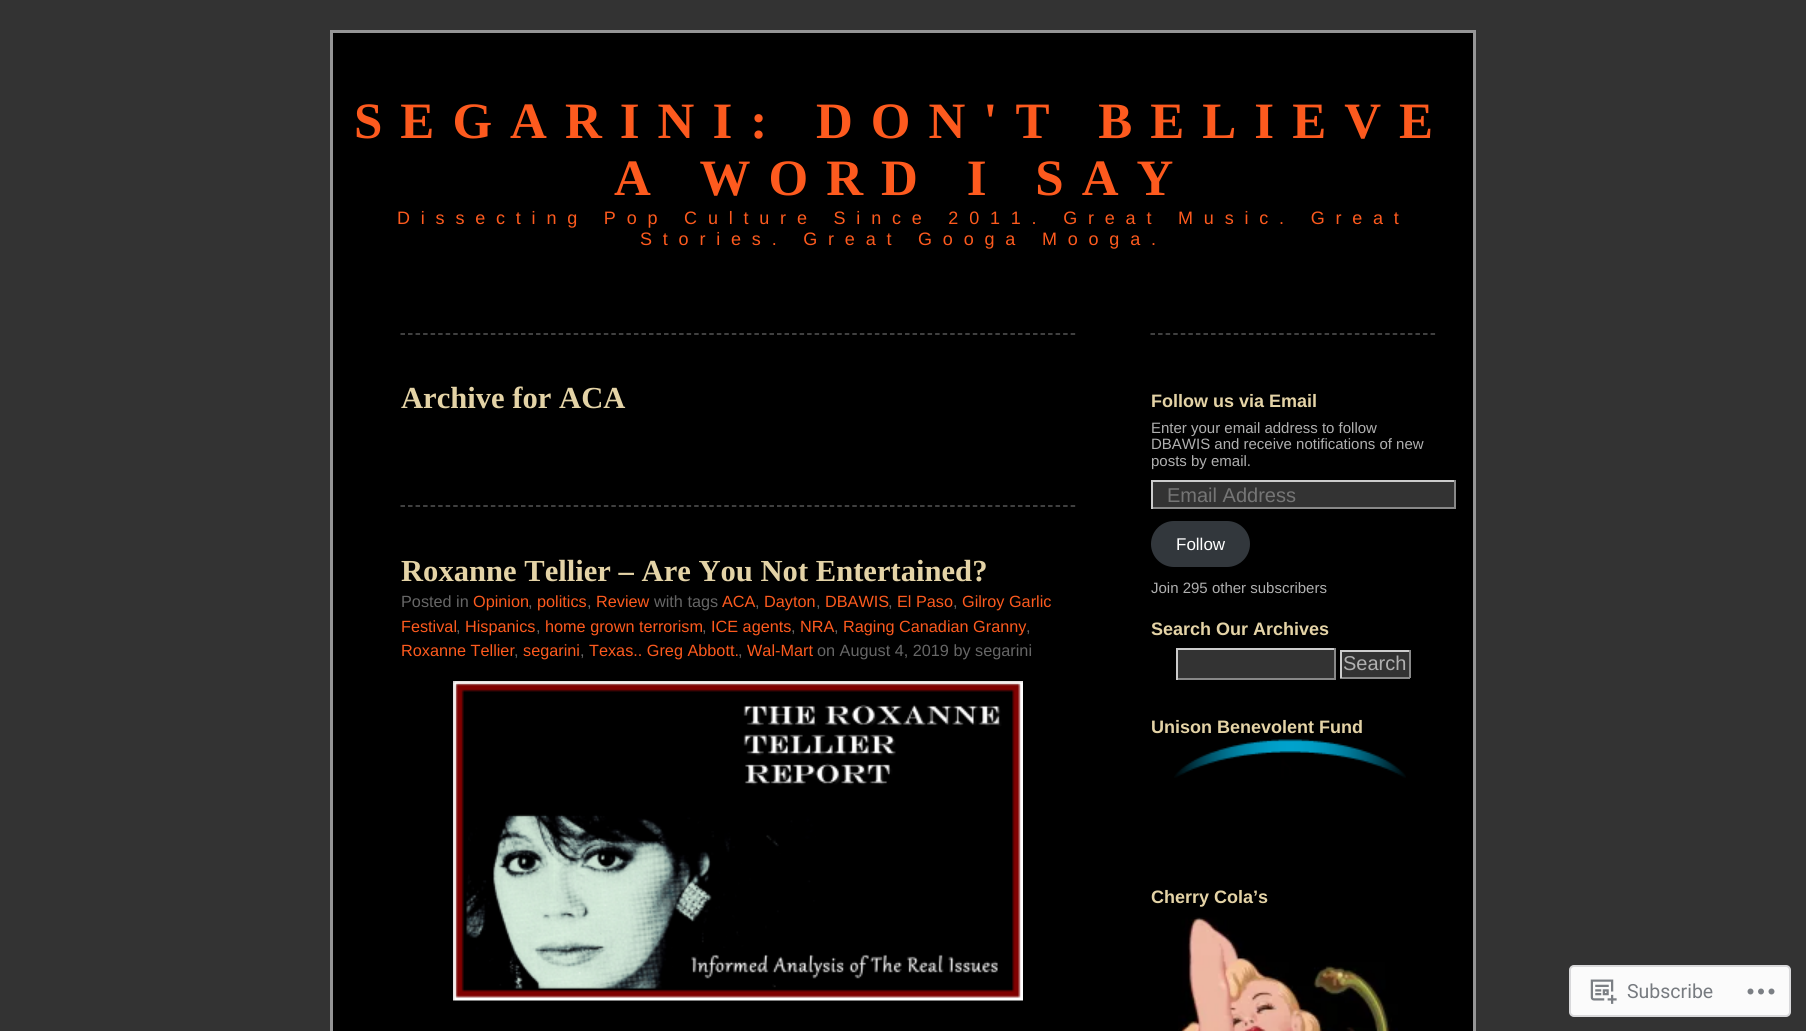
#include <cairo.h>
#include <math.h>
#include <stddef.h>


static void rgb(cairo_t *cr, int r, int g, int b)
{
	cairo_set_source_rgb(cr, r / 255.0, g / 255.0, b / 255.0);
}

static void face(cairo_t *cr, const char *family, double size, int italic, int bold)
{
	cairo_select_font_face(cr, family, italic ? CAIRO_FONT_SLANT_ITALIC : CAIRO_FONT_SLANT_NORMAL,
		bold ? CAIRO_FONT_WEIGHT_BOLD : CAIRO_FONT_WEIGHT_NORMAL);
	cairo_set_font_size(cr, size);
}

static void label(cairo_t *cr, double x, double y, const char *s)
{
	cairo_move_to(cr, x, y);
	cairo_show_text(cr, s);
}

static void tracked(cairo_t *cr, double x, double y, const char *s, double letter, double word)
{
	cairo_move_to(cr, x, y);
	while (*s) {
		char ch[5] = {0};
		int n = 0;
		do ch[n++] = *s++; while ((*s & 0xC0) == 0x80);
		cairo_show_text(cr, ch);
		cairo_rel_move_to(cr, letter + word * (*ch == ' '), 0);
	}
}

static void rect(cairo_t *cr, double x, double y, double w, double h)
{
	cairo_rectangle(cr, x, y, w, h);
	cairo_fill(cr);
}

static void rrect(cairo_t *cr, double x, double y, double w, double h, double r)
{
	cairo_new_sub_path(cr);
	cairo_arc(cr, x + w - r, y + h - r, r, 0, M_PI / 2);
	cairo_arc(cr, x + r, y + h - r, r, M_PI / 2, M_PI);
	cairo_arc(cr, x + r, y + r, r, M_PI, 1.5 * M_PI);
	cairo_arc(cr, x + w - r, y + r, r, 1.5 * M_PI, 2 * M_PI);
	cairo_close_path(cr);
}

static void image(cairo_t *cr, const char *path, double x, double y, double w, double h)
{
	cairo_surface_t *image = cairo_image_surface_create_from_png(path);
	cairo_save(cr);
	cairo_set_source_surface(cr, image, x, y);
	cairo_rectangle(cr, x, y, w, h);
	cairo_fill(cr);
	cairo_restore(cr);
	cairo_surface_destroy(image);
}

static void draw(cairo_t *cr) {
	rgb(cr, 51, 51, 51);
	cairo_paint(cr);
	rgb(cr, 0, 0, 0);
	cairo_rectangle(cr, 331.5, 31.5, 1143, 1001);
	cairo_fill_preserve(cr);
	rgb(cr, 149, 149, 150);
	cairo_set_line_width(cr, 3);
	cairo_stroke(cr);
	face(cr, "Liberation Serif", 51, 0, 1);
	rgb(cr, 253, 90, 30);
	tracked(cr, 354, 138, "SEGARINI: DON'T BELIEVE", 18, 0);
	tracked(cr, 614, 195, "A WORD I SAY", 18, 0);
	face(cr, "Liberation Sans", 18, 0, 0);
	tracked(cr, 397, 224, "Dissecting Pop Culture Since 2011. Great Music. Great", 10.8, 0);
	tracked(cr, 640, 245, "Stories. Great Googa Mooga.", 10.8, 0);
	cairo_new_path(cr);
	cairo_move_to(cr, 400.5, 334);
	cairo_line_to(cr, 1075.5, 334);
	rgb(cr, 85, 85, 85);
	cairo_set_line_width(cr, 1.5);
	cairo_set_dash(cr, (double[]){4.5, 3.03}, 2, 0);
	cairo_stroke(cr);
	face(cr, "Liberation Serif", 30.6, 0, 1);
	rgb(cr, 228, 211, 166);
	label(cr, 401, 408, "Archive for ACA");
	cairo_new_path(cr);
	cairo_move_to(cr, 400.5, 506);
	cairo_line_to(cr, 1075.5, 506);
	rgb(cr, 85, 85, 85);
	cairo_stroke(cr);
	rgb(cr, 228, 211, 166);
	label(cr, 401, 581, "Roxanne Tellier – Are You Not Entertained?");
	face(cr, "Liberation Sans", 16.25, 0, 0);
	rgb(cr, 102, 102, 102);
	label(cr, 401, 607, "Posted in");
	rgb(cr, 253, 90, 30);
	label(cr, 473, 607, "Opinion");
	rgb(cr, 102, 102, 102);
	label(cr, 528, 607, ",");
	rgb(cr, 253, 90, 30);
	label(cr, 537, 607, "politics");
	rgb(cr, 102, 102, 102);
	label(cr, 587, 607, ",");
	rgb(cr, 253, 90, 30);
	label(cr, 596, 607, "Review");
	rgb(cr, 102, 102, 102);
	label(cr, 654, 607, "with tags");
	rgb(cr, 253, 90, 30);
	label(cr, 722, 607, "ACA");
	rgb(cr, 102, 102, 102);
	label(cr, 755, 607, ",");
	rgb(cr, 253, 90, 30);
	label(cr, 764, 607, "Dayton");
	rgb(cr, 102, 102, 102);
	label(cr, 816, 607, ",");
	rgb(cr, 253, 90, 30);
	label(cr, 825, 607, "DBAWIS");
	rgb(cr, 102, 102, 102);
	label(cr, 888, 607, ",");
	rgb(cr, 253, 90, 30);
	label(cr, 897, 607, "El Paso");
	rgb(cr, 102, 102, 102);
	label(cr, 953, 607, ",");
	rgb(cr, 253, 90, 30);
	label(cr, 962, 607, "Gilroy Garlic");
	label(cr, 401, 632, "Festival");
	rgb(cr, 102, 102, 102);
	label(cr, 456, 632, ",");
	rgb(cr, 253, 90, 30);
	label(cr, 465, 632, "Hispanics");
	rgb(cr, 102, 102, 102);
	label(cr, 536, 632, ",");
	rgb(cr, 253, 90, 30);
	label(cr, 545, 632, "home grown terrorism");
	rgb(cr, 102, 102, 102);
	label(cr, 702, 632, ",");
	rgb(cr, 253, 90, 30);
	label(cr, 711, 632, "ICE agents");
	rgb(cr, 102, 102, 102);
	label(cr, 791, 632, ",");
	rgb(cr, 253, 90, 30);
	label(cr, 800, 632, "NRA");
	rgb(cr, 102, 102, 102);
	label(cr, 834, 632, ",");
	rgb(cr, 253, 90, 30);
	label(cr, 843, 632, "Raging Canadian Granny");
	rgb(cr, 102, 102, 102);
	label(cr, 1026, 632, ",");
	rgb(cr, 253, 90, 30);
	label(cr, 401, 656, "Roxanne Tellier");
	rgb(cr, 102, 102, 102);
	label(cr, 514, 656, ",");
	rgb(cr, 253, 90, 30);
	label(cr, 523, 656, "segarini");
	rgb(cr, 102, 102, 102);
	label(cr, 580, 656, ",");
	rgb(cr, 253, 90, 30);
	label(cr, 589, 656, "Texas.. Greg Abbott.");
	rgb(cr, 102, 102, 102);
	label(cr, 738, 656, ",");
	rgb(cr, 253, 90, 30);
	label(cr, 747, 656, "Wal-Mart");
	rgb(cr, 102, 102, 102);
	label(cr, 817, 656, "on August 4, 2019 by segarini");
	image(cr, "image0.png", 453, 681, 570, 320);
	cairo_new_path(cr);
	cairo_move_to(cr, 1150.5, 334);
	cairo_line_to(cr, 1435.5, 334);
	rgb(cr, 85, 85, 85);
	cairo_set_dash(cr, (double[]){4.5, 3.07}, 2, 0);
	cairo_stroke(cr);
	face(cr, "Liberation Sans", 18, 0, 1);
	rgb(cr, 228, 211, 166);
	label(cr, 1151, 407, "Follow us via Email");
	face(cr, "Liberation Sans", 15, 0, 0);
	rgb(cr, 176, 176, 176);
	label(cr, 1151, 433, "Enter your email address to follow");
	label(cr, 1151, 449, "DBAWIS and receive notifications of new");
	label(cr, 1151, 466, "posts by email.");
	rgb(cr, 51, 51, 51);
	rect(cr, 1153, 482, 301, 25);
	rgb(cr, 204, 204, 204);
	rect(cr, 1151, 480, 304, 2);
	rgb(cr, 136, 136, 136);
	rect(cr, 1454, 480, 2, 29);
	rect(cr, 1151, 507, 304, 2);
	rgb(cr, 204, 204, 204);
	rect(cr, 1151, 480, 2, 29);
	face(cr, "Liberation Sans", 20, 0, 0);
	rgb(cr, 117, 117, 117);
	label(cr, 1167, 502, "Email Address");
	rgb(cr, 50, 55, 60);
	rrect(cr, 1151, 521, 99, 46, 23);
	cairo_fill(cr);
	face(cr, "Liberation Sans", 17, 0, 0);
	rgb(cr, 255, 255, 255);
	label(cr, 1176, 550, "Follow");
	face(cr, "Liberation Sans", 15, 0, 0);
	rgb(cr, 176, 176, 176);
	label(cr, 1151, 593, "Join 295 other subscribers");
	face(cr, "Liberation Sans", 18, 0, 1);
	rgb(cr, 228, 211, 166);
	label(cr, 1151, 635, "Search Our Archives");
	rgb(cr, 51, 51, 51);
	rect(cr, 1178, 650, 156, 28);
	rgb(cr, 204, 204, 204);
	rect(cr, 1176, 648, 159, 2);
	rgb(cr, 136, 136, 136);
	rect(cr, 1334, 648, 2, 32);
	rect(cr, 1176, 678, 159, 2);
	rgb(cr, 204, 204, 204);
	rect(cr, 1176, 648, 2, 32);
	rgb(cr, 51, 51, 51);
	rect(cr, 1342, 652, 67, 25);
	rgb(cr, 204, 204, 204);
	rect(cr, 1340, 650, 70, 2);
	rgb(cr, 136, 136, 136);
	rect(cr, 1409, 650, 2, 28);
	rect(cr, 1340, 677, 70, 2);
	rgb(cr, 204, 204, 204);
	rect(cr, 1340, 650, 2, 28);
	face(cr, "Liberation Sans", 20, 0, 0);
	rgb(cr, 176, 176, 176);
	label(cr, 1343, 670, "Search");
	face(cr, "Liberation Sans", 18, 0, 1);
	rgb(cr, 228, 211, 166);
	label(cr, 1151, 733, "Unison Benevolent Fund");
	image(cr, "image1.png", 1174, 739, 232, 39);
	label(cr, 1151, 903, "Cherry Cola’s");
	image(cr, "image2.png", 1178, 917, 220, 114);
	rgb(cr, 251, 251, 251);
	rrect(cr, 1570, 966, 220, 50, 4);
	cairo_fill_preserve(cr);
	rgb(cr, 217, 217, 219);
	cairo_set_line_width(cr, 2);
	cairo_set_dash(cr, NULL, 0, 0);
	cairo_stroke(cr);
	image(cr, "image3.png", 1590, 979, 27, 25);
	face(cr, "Roboto", 19.5, 0, 0);
	rgb(cr, 119, 123, 128);
	label(cr, 1627, 998, "Subscribe");
	image(cr, "image4.png", 1747, 988, 28, 7);
}

int main(void) {
	cairo_surface_t *surface = cairo_image_surface_create(CAIRO_FORMAT_RGB24, 1806, 1031);
	cairo_t *cr = cairo_create(surface);
	cairo_font_options_t *options = cairo_font_options_create();
	cairo_font_options_set_hint_metrics(options, CAIRO_HINT_METRICS_OFF);
	cairo_font_options_set_hint_style(options, CAIRO_HINT_STYLE_NONE);
	cairo_set_font_options(cr, options);
	cairo_set_miter_limit(cr, 4);
	draw(cr);
	cairo_surface_write_to_png(surface, "render.png");
	cairo_font_options_destroy(options);
	cairo_destroy(cr);
	cairo_surface_destroy(surface);
	return 0;
}
